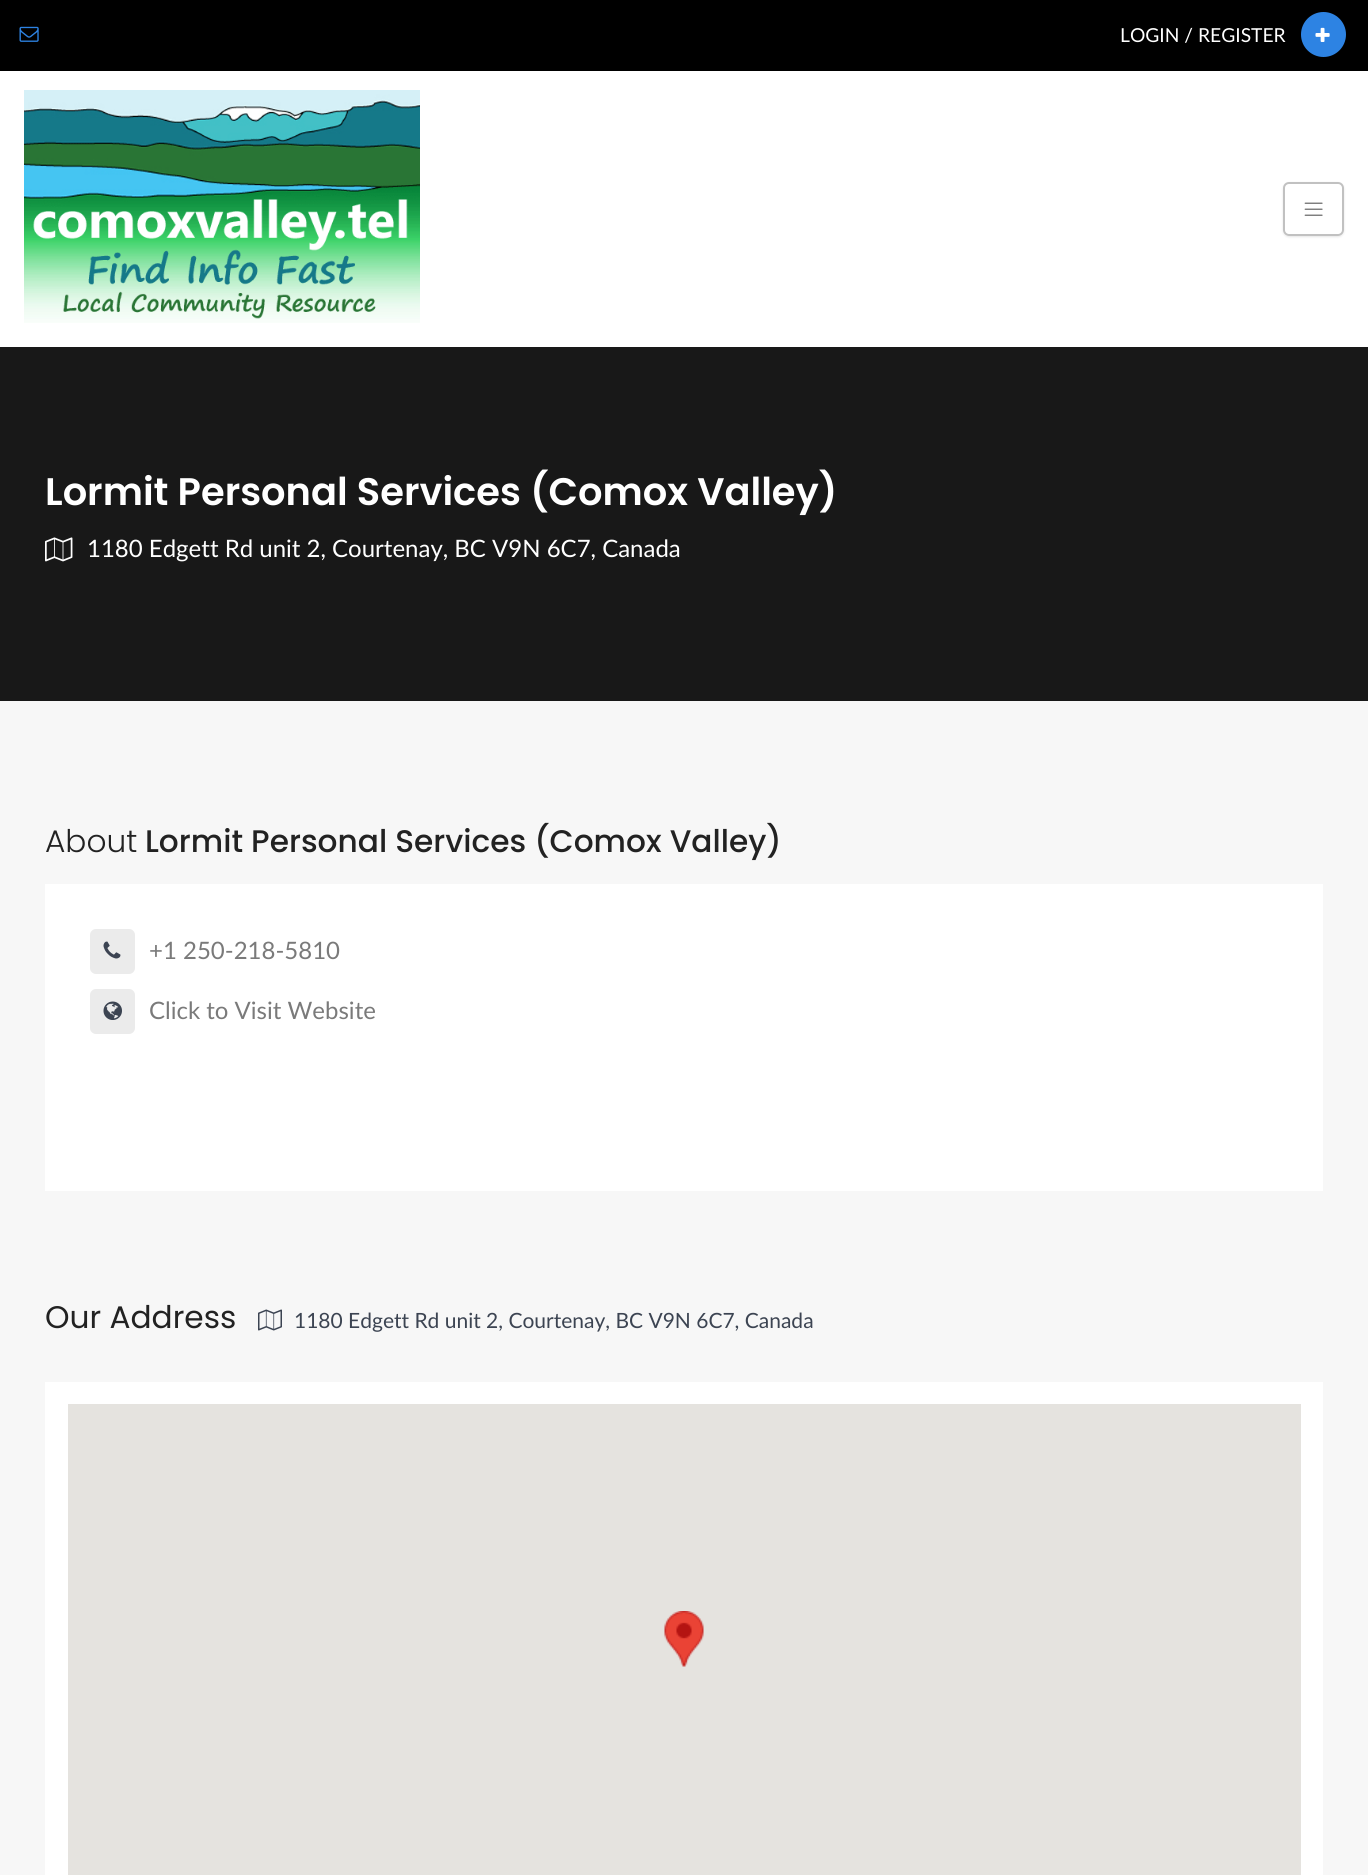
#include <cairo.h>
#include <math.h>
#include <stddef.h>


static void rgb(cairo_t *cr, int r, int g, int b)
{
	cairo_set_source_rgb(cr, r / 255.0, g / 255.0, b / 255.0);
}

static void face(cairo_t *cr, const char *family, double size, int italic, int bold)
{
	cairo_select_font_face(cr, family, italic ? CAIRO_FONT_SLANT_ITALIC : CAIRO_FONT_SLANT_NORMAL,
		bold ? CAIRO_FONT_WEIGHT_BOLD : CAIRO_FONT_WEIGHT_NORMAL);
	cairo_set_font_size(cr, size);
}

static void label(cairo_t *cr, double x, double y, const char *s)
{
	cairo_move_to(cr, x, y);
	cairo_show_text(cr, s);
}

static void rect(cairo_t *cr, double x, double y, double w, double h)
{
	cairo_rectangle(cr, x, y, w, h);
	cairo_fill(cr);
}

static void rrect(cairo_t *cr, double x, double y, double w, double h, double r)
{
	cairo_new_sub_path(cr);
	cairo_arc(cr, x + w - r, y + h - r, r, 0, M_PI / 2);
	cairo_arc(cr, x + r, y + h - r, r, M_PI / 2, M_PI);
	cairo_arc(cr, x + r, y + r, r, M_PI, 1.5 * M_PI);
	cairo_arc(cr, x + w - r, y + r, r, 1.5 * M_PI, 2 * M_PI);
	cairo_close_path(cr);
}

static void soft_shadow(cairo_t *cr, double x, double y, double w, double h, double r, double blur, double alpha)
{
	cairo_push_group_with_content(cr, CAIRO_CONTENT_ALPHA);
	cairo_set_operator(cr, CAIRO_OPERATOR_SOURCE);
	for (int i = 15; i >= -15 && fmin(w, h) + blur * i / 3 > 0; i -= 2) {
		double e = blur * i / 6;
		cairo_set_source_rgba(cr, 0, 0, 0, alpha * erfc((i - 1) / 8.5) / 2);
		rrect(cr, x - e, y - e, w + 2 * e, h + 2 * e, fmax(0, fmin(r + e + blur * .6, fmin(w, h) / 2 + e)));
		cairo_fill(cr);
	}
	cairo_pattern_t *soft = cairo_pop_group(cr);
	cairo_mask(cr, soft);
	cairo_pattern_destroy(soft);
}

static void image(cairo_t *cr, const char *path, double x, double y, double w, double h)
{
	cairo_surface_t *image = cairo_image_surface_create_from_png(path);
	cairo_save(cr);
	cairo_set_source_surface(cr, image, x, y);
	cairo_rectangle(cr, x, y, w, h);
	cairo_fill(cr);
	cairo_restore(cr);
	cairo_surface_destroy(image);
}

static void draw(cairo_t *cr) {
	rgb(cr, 255, 255, 255);
	cairo_paint(cr);
	rgb(cr, 0, 0, 0);
	rect(cr, 0, 0, 1368, 71);
	image(cr, "image0.png", 19, 26, 20, 16);
	face(cr, "Lato", 19.25, 0, 0);
	rgb(cr, 255, 255, 255);
	label(cr, 1120, 42, "LOGIN / REGISTER");
	rgb(cr, 45, 131, 227);
	cairo_new_path(cr);
	cairo_arc(cr, 1323.5, 34.5, 22.5, 0, 2 * M_PI);
	cairo_fill(cr);
	image(cr, "image1.png", 1315, 27, 15, 15);
	image(cr, "image2.png", 24, 90, 396, 233);
	cairo_save(cr);
	cairo_set_fill_rule(cr, CAIRO_FILL_RULE_EVEN_ODD);
	cairo_new_path(cr);
	cairo_move_to(cr, 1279, 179);
	cairo_line_to(cr, 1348, 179);
	cairo_line_to(cr, 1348, 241);
	cairo_line_to(cr, 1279, 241);
	cairo_close_path(cr);
	cairo_move_to(cr, 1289, 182);
	cairo_line_to(cr, 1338, 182);
	cairo_curve_to(cr, 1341.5, 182, 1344, 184.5, 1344, 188);
	cairo_line_to(cr, 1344, 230);
	cairo_curve_to(cr, 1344, 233.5, 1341.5, 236, 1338, 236);
	cairo_line_to(cr, 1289, 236);
	cairo_curve_to(cr, 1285.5, 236, 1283, 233.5, 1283, 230);
	cairo_line_to(cr, 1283, 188);
	cairo_curve_to(cr, 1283, 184.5, 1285.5, 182, 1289, 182);
	cairo_close_path(cr);
	cairo_clip(cr);
	rgb(cr, 0, 0, 0);
	soft_shadow(cr, 1283, 183, 61, 54, 6, 1, 0.1);
	cairo_restore(cr);
	rrect(cr, 1284, 183, 59, 52, 5);
	rgb(cr, 193, 193, 193);
	cairo_stroke(cr);
	image(cr, "image3.png", 1304, 202, 19, 14);
	rgb(cr, 24, 24, 24);
	rect(cr, 0, 347, 1368, 354);
	face(cr, "Poppins SemiBold", 38.4, 0, 0);
	rgb(cr, 255, 255, 255);
	label(cr, 45, 505, "Lormit Personal Services (Comox Valley)");
	image(cr, "image4.png", 45, 537, 28, 25);
	face(cr, "Lato", 24, 0, 0);
	label(cr, 87, 557, "1180 Edgett Rd unit 2, Courtenay, BC V9N 6C7, Canada");
	rgb(cr, 247, 247, 247);
	rect(cr, 0, 701, 1368, 1174);
	face(cr, "Poppins Light", 31.2, 0, 0);
	rgb(cr, 34, 34, 34);
	label(cr, 45, 852, "About");
	face(cr, "Poppins Medium", 31.2, 0, 0);
	label(cr, 145, 852, "Lormit Personal Services (Comox Valley)");
	rgb(cr, 255, 255, 255);
	rect(cr, 45, 884, 1278, 307);
	rgb(cr, 235, 235, 235);
	rrect(cr, 90, 929, 45, 45, 6);
	cairo_fill(cr);
	image(cr, "image5.png", 103, 941, 18, 18);
	face(cr, "Lato", 24, 0, 0);
	rgb(cr, 122, 122, 122);
	label(cr, 149, 959, "+1 250-218-5810");
	rgb(cr, 235, 235, 235);
	rrect(cr, 90, 989, 45, 45, 6);
	cairo_fill(cr);
	image(cr, "image6.png", 103, 1001, 19, 19);
	rgb(cr, 122, 122, 122);
	label(cr, 149, 1019, "Click to Visit Website");
	face(cr, "Poppins", 31.2, 0, 0);
	rgb(cr, 34, 34, 34);
	label(cr, 45, 1328, "Our Address");
	image(cr, "image7.png", 258, 1309, 24, 22);
	face(cr, "Lato", 21, 0, 0);
	rgb(cr, 60, 68, 82);
	label(cr, 294, 1328, "1180 Edgett Rd unit 2, Courtenay, BC V9N 6C7, Canada");
	rgb(cr, 255, 255, 255);
	rect(cr, 45, 1382, 1278, 493);
	rgb(cr, 229, 227, 223);
	rect(cr, 68, 1404, 1233, 471);
	image(cr, "image8.png", 664, 1611, 40, 56);
}

int main(void) {
	cairo_surface_t *surface = cairo_image_surface_create(CAIRO_FORMAT_RGB24, 1368, 1875);
	cairo_t *cr = cairo_create(surface);
	cairo_font_options_t *options = cairo_font_options_create();
	cairo_font_options_set_hint_metrics(options, CAIRO_HINT_METRICS_OFF);
	cairo_font_options_set_hint_style(options, CAIRO_HINT_STYLE_NONE);
	cairo_set_font_options(cr, options);
	cairo_set_miter_limit(cr, 4);
	draw(cr);
	cairo_surface_write_to_png(surface, "render.png");
	cairo_font_options_destroy(options);
	cairo_destroy(cr);
	cairo_surface_destroy(surface);
	return 0;
}
